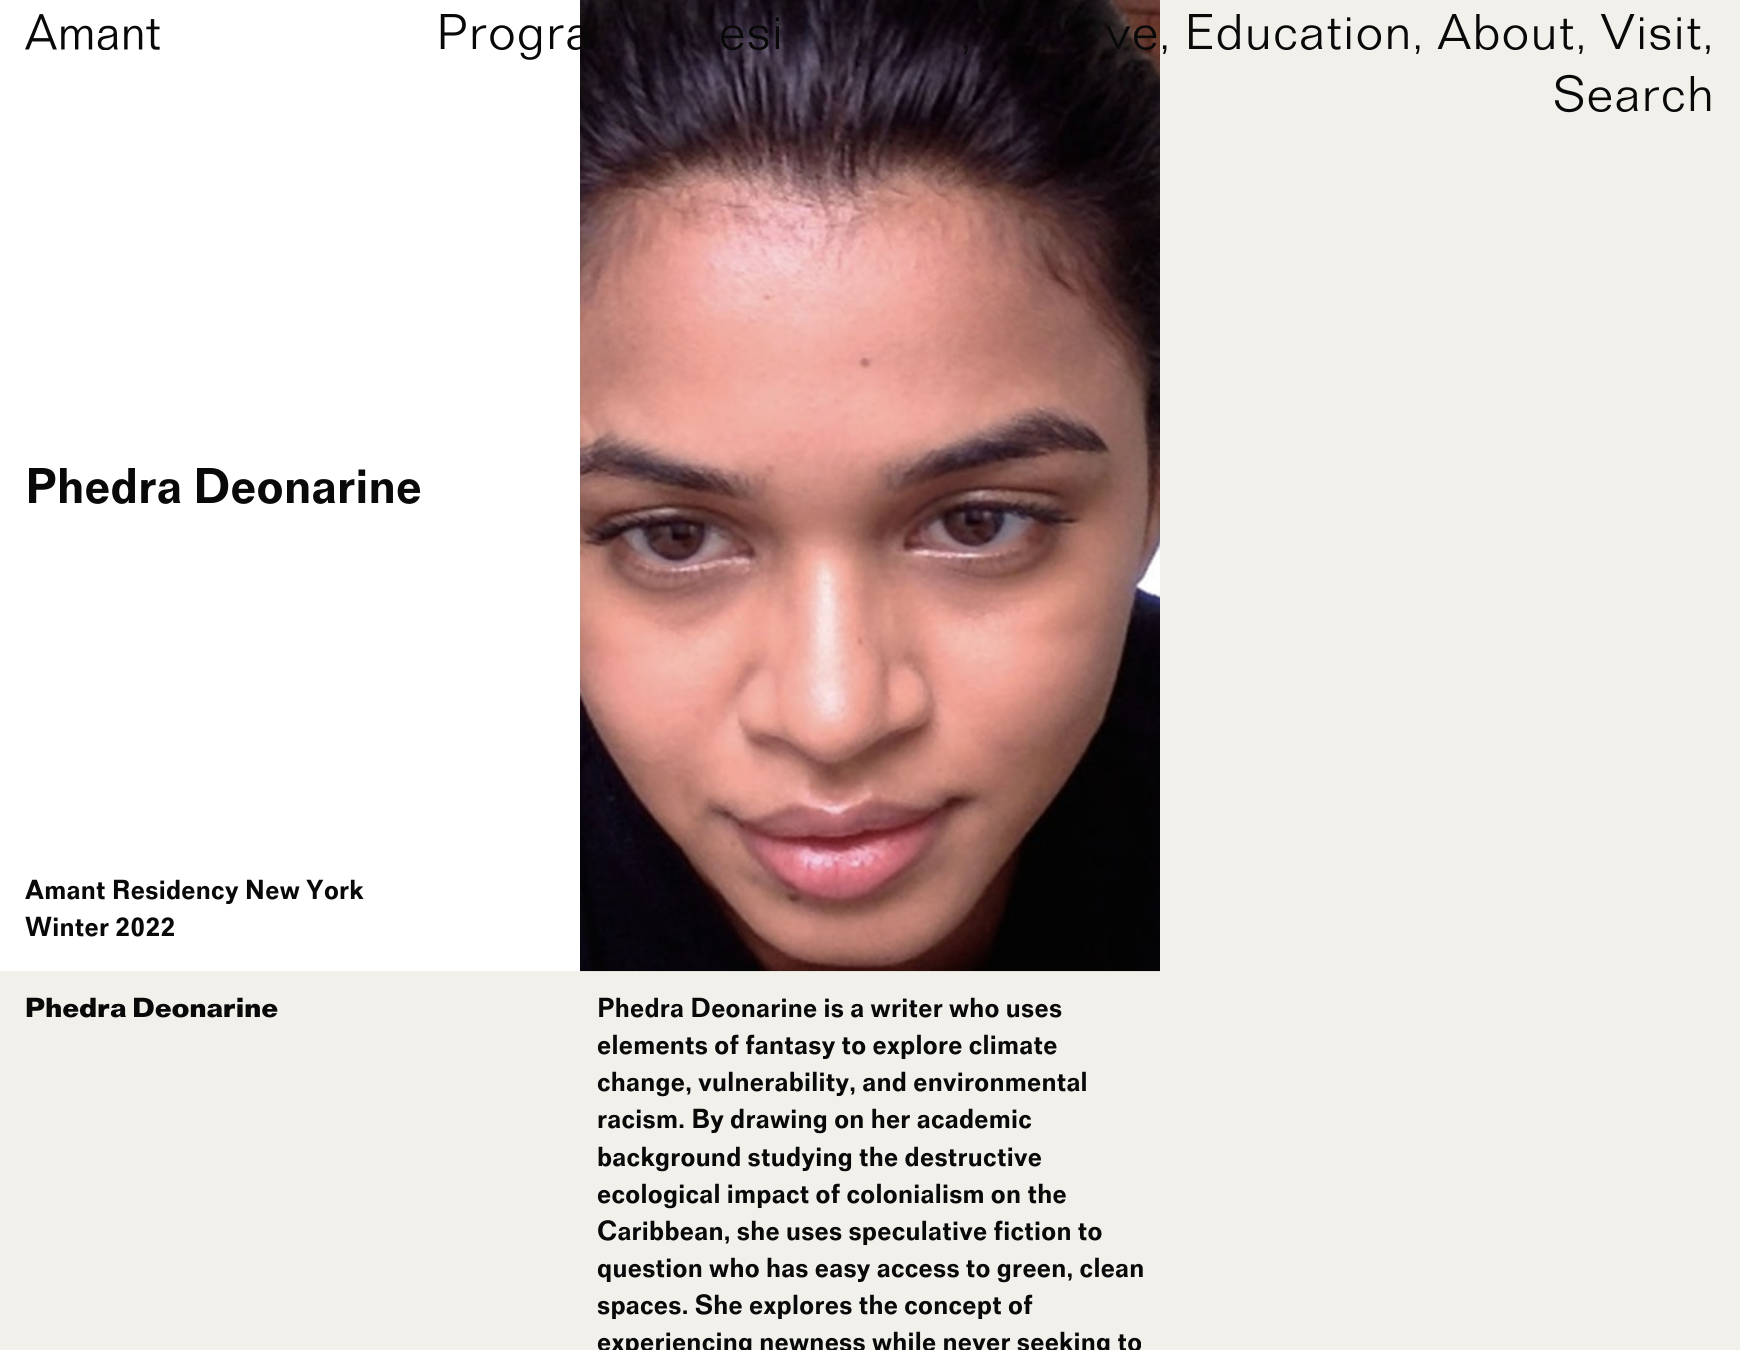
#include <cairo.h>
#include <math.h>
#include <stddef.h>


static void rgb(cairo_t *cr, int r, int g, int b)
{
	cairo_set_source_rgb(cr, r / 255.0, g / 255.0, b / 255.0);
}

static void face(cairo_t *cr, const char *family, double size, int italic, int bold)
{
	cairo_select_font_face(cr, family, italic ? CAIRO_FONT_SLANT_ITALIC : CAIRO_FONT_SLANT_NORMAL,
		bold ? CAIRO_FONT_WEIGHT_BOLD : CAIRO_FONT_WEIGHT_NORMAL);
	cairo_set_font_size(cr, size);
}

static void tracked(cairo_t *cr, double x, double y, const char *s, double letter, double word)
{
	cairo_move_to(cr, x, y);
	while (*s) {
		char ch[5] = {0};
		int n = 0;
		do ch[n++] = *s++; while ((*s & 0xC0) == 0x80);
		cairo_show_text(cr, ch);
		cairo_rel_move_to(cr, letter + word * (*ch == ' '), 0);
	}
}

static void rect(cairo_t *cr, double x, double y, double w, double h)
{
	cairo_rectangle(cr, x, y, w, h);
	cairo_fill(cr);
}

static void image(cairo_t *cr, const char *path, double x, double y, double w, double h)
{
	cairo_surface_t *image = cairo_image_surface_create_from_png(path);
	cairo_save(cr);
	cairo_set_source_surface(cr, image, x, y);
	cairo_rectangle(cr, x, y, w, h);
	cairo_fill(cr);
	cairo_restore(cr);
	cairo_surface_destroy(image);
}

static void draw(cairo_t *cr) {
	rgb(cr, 241, 240, 234);
	cairo_paint(cr);
	rgb(cr, 255, 255, 255);
	rect(cr, 0, 0, 580, 971);
	image(cr, "image0.png", 25, 14, 135, 36);
	image(cr, "image1.png", 580, 0, 580, 972);
	face(cr, "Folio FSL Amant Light", 50, 0, 0);
	rgb(cr, 9, 9, 9);
	tracked(cr, 436, 49, "Progra", 1.5, 0);
	tracked(cr, 719, 49, "esi", 1.5, 0);
	tracked(cr, 961, 49, ",", 1.5, 0);
	tracked(cr, 1106, 49, "ve, Education, About, Visit,", 1.5, 0);
	tracked(cr, 1553, 111, "Search", 1.5, 0);
	face(cr, "Folio FSL Amant SemiBold", 50, 0, 0);
	tracked(cr, 25, 503, "Phedra Deonarine", 0.3, 0);
	face(cr, "Folio FSL Amant SemiBold", 27.5, 0, 0);
	tracked(cr, 25, 899, "Amant Residency New York", 0.3, 0);
	tracked(cr, 25, 936, "Winter 2022", 0.3, 0);
	face(cr, "Folio FSL Amant", 27.5, 0, 1);
	tracked(cr, 25, 1017, "Phedra Deonarine", 0.3, 0);
	face(cr, "Folio FSL Amant SemiBold", 27.5, 0, 0);
	tracked(cr, 597, 1017, "Phedra Deonarine is a writer who uses", 0.3, 0);
	tracked(cr, 597, 1054, "elements of fantasy to explore climate", 0.3, 0);
	tracked(cr, 597, 1091, "change, vulnerability, and environmental", 0.3, 0);
	tracked(cr, 597, 1128, "racism. By drawing on her academic", 0.3, 0);
	tracked(cr, 597, 1166, "background studying the destructive", 0.3, 0);
	tracked(cr, 597, 1203, "ecological impact of colonialism on the", 0.3, 0);
	tracked(cr, 597, 1240, "Caribbean, she uses speculative fiction to", 0.3, 0);
	tracked(cr, 597, 1277, "question who has easy access to green, clean", 0.3, 0);
	tracked(cr, 597, 1314, "spaces. She explores the concept of", 0.3, 0);
	tracked(cr, 597, 1351, "experiencing newness while never seeking to", 0.3, 0);
}

int main(void) {
	cairo_surface_t *surface = cairo_image_surface_create(CAIRO_FORMAT_RGB24, 1740, 1350);
	cairo_t *cr = cairo_create(surface);
	cairo_font_options_t *options = cairo_font_options_create();
	cairo_font_options_set_hint_metrics(options, CAIRO_HINT_METRICS_OFF);
	cairo_font_options_set_hint_style(options, CAIRO_HINT_STYLE_NONE);
	cairo_set_font_options(cr, options);
	cairo_set_miter_limit(cr, 4);
	draw(cr);
	cairo_surface_write_to_png(surface, "render.png");
	cairo_font_options_destroy(options);
	cairo_destroy(cr);
	cairo_surface_destroy(surface);
	return 0;
}
